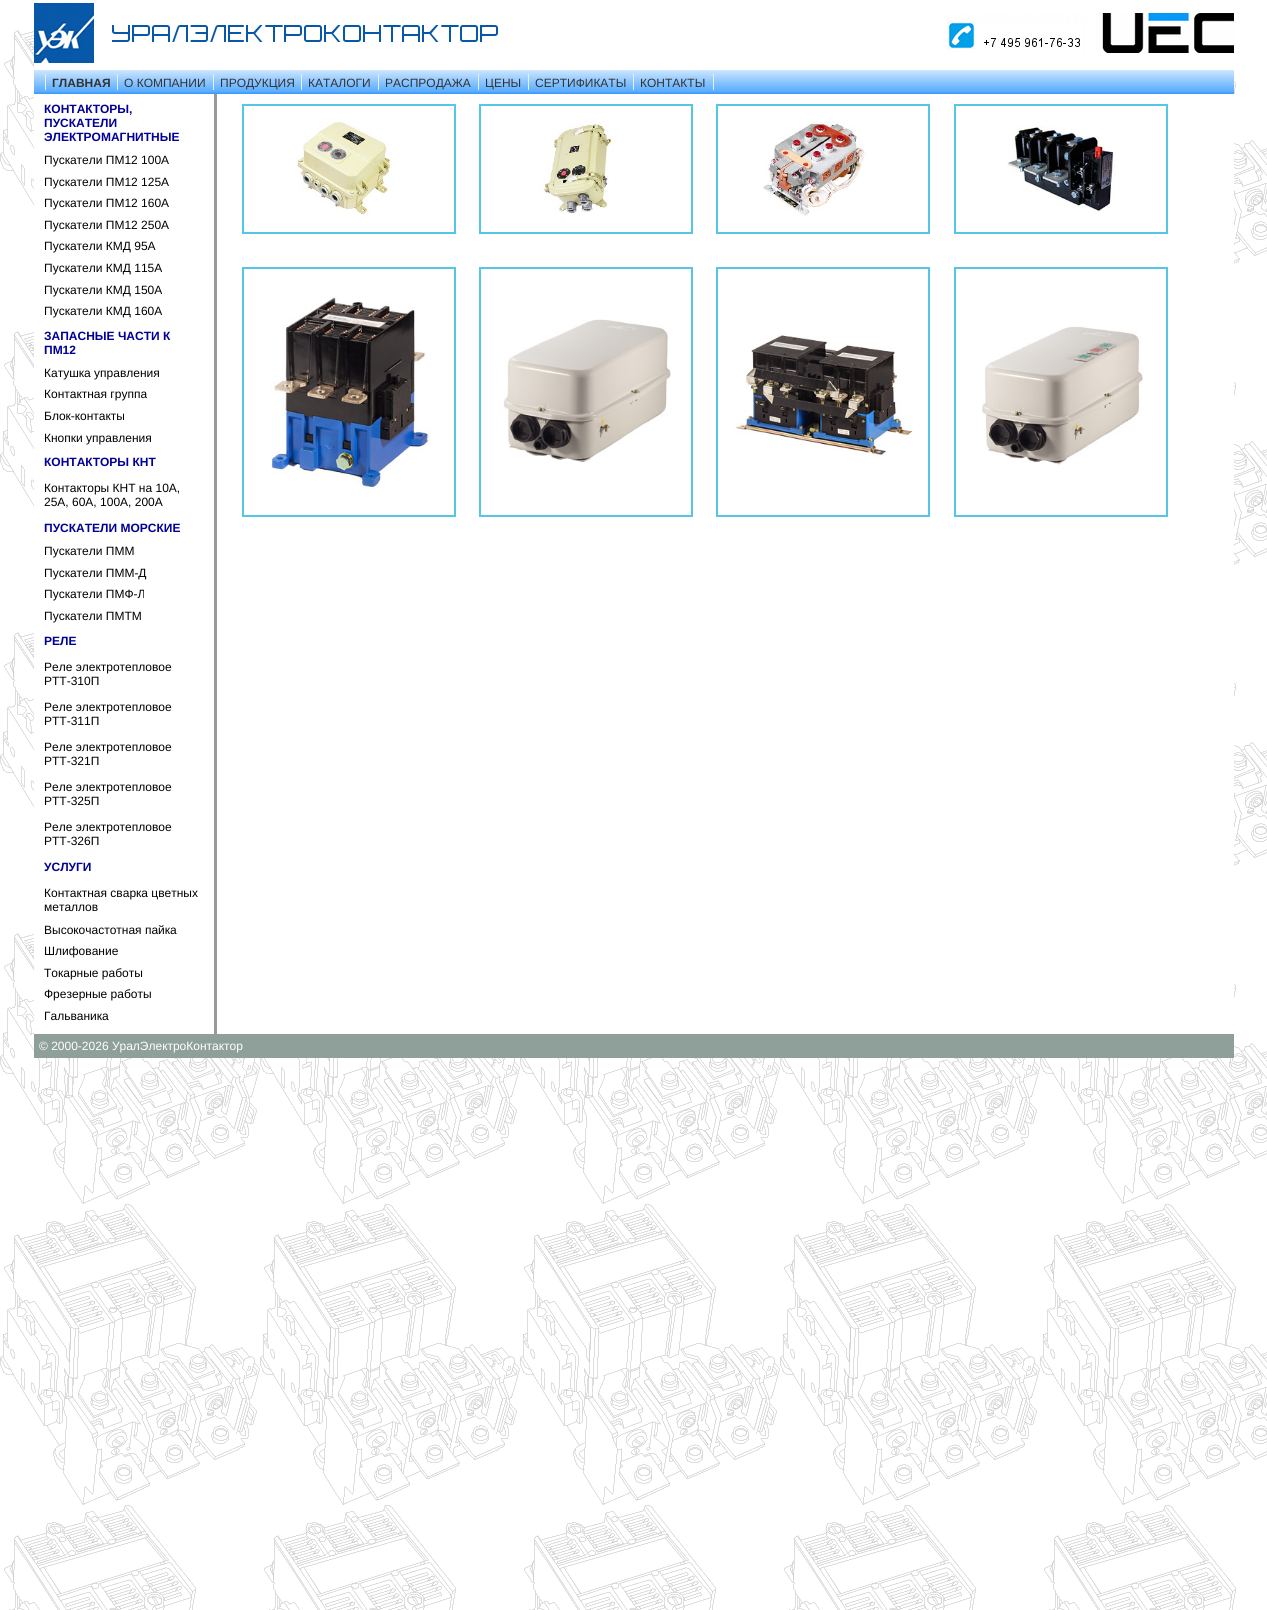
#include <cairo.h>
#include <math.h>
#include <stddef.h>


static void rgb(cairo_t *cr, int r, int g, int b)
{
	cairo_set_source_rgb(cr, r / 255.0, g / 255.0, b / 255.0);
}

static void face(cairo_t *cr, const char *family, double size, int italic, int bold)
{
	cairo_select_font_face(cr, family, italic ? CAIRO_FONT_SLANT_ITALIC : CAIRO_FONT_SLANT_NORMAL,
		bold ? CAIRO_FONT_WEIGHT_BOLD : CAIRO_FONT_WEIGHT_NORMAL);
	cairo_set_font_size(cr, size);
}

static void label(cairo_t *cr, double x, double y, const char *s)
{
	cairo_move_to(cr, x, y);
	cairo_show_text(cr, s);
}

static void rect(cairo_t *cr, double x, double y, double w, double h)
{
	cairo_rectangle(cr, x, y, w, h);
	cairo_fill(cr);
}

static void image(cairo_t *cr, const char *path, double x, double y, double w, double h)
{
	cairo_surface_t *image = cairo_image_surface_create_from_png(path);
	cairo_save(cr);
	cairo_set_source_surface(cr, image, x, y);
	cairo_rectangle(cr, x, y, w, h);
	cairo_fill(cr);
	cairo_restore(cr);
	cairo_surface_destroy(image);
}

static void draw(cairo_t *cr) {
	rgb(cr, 255, 255, 255);
	cairo_paint(cr);
	image(cr, "image0.png", 0, 30, 1267, 1580);
	rgb(cr, 255, 255, 255);
	rect(cr, 34, 30, 1200, 1004);
	image(cr, "image1.png", 34, 3, 464, 60);
	image(cr, "image2.png", 947, 13, 287, 40);
	image(cr, "image3.png", 34, 70, 1200, 24);
	rgb(cr, 232, 241, 243);
	rect(cr, 45, 74, 1, 16);
	face(cr, "Liberation Sans", 12, 0, 1);
	rgb(cr, 51, 51, 51);
	label(cr, 52, 87, "ГЛАВНАЯ");
	rgb(cr, 232, 241, 243);
	rect(cr, 117, 74, 1, 16);
	face(cr, "Liberation Sans", 12, 0, 0);
	rgb(cr, 51, 51, 51);
	label(cr, 124, 87, "О КОМПАНИИ");
	rgb(cr, 232, 241, 243);
	rect(cr, 213, 74, 1, 16);
	rgb(cr, 51, 51, 51);
	label(cr, 220, 87, "ПРОДУКЦИЯ");
	rgb(cr, 232, 241, 243);
	rect(cr, 301, 74, 1, 16);
	rgb(cr, 51, 51, 51);
	label(cr, 308, 87, "КАТАЛОГИ");
	rgb(cr, 232, 241, 243);
	rect(cr, 378, 74, 1, 16);
	rgb(cr, 51, 51, 51);
	label(cr, 385, 87, "РАСПРОДАЖА");
	rgb(cr, 232, 241, 243);
	rect(cr, 478, 74, 1, 16);
	rgb(cr, 51, 51, 51);
	label(cr, 485, 87, "ЦЕНЫ");
	rgb(cr, 232, 241, 243);
	rect(cr, 528, 74, 1, 16);
	rgb(cr, 51, 51, 51);
	label(cr, 535, 87, "СЕРТИФИКАТЫ");
	rgb(cr, 232, 241, 243);
	rect(cr, 633, 74, 1, 16);
	rgb(cr, 51, 51, 51);
	label(cr, 640, 87, "КОНТАКТЫ");
	rgb(cr, 232, 241, 243);
	rect(cr, 713, 74, 1, 16);
	rgb(cr, 153, 153, 153);
	rect(cr, 214, 94, 3, 940);
	face(cr, "Liberation Sans", 12, 0, 1);
	rgb(cr, 0, 0, 153);
	label(cr, 44, 113, "КОНТАКТОРЫ,");
	label(cr, 44, 127, "ПУСКАТЕЛИ");
	label(cr, 44, 141, "ЭЛЕКТРОМАГНИТНЫЕ");
	face(cr, "Liberation Sans", 12, 0, 0);
	rgb(cr, 0, 0, 0);
	label(cr, 44, 164, "Пускатели ПМ12 100А");
	label(cr, 44, 186, "Пускатели ПМ12 125А");
	label(cr, 44, 207, "Пускатели ПМ12 160А");
	label(cr, 44, 229, "Пускатели ПМ12 250А");
	label(cr, 44, 250, "Пускатели КМД 95А");
	label(cr, 44, 272, "Пускатели КМД 115А");
	label(cr, 44, 294, "Пускатели КМД 150А");
	label(cr, 44, 315, "Пускатели КМД 160А");
	face(cr, "Liberation Sans", 12, 0, 1);
	rgb(cr, 0, 0, 153);
	label(cr, 44, 340, "ЗАПАСНЫЕ ЧАСТИ К");
	label(cr, 44, 354, "ПМ12");
	face(cr, "Liberation Sans", 12, 0, 0);
	rgb(cr, 0, 0, 0);
	label(cr, 44, 377, "Катушка управления");
	label(cr, 44, 398, "Контактная группа");
	label(cr, 44, 420, "Блок-контакты");
	label(cr, 44, 442, "Кнопки управления");
	face(cr, "Liberation Sans", 12, 0, 1);
	rgb(cr, 0, 0, 153);
	label(cr, 44, 466, "КОНТАКТОРЫ КНТ");
	face(cr, "Liberation Sans", 12, 0, 0);
	rgb(cr, 0, 0, 0);
	label(cr, 44, 492, "Контакторы КНТ на 10А,");
	label(cr, 44, 506, "25А, 60А, 100А, 200А");
	face(cr, "Liberation Sans", 12, 0, 1);
	rgb(cr, 0, 0, 153);
	label(cr, 44, 532, "ПУСКАТЕЛИ МОРСКИЕ");
	face(cr, "Liberation Sans", 12, 0, 0);
	rgb(cr, 0, 0, 0);
	label(cr, 44, 555, "Пускатели ПММ");
	label(cr, 44, 577, "Пускатели ПММ-Д");
	label(cr, 44, 598, "Пускатели ПМФ-Л");
	label(cr, 44, 620, "Пускатели ПМТМ");
	face(cr, "Liberation Sans", 12, 0, 1);
	rgb(cr, 0, 0, 153);
	label(cr, 44, 645, "РЕЛЕ");
	face(cr, "Liberation Sans", 12, 0, 0);
	rgb(cr, 0, 0, 0);
	label(cr, 44, 671, "Реле электротепловое");
	label(cr, 44, 685, "РТТ-310П");
	label(cr, 44, 711, "Реле электротепловое");
	label(cr, 44, 725, "РТТ-311П");
	label(cr, 44, 751, "Реле электротепловое");
	label(cr, 44, 765, "РТТ-321П");
	label(cr, 44, 791, "Реле электротепловое");
	label(cr, 44, 805, "РТТ-325П");
	label(cr, 44, 831, "Реле электротепловое");
	label(cr, 44, 845, "РТТ-326П");
	face(cr, "Liberation Sans", 12, 0, 1);
	rgb(cr, 0, 0, 153);
	label(cr, 44, 871, "УСЛУГИ");
	face(cr, "Liberation Sans", 12, 0, 0);
	rgb(cr, 0, 0, 0);
	label(cr, 44, 897, "Контактная сварка цветных");
	label(cr, 44, 911, "металлов");
	label(cr, 44, 934, "Высокочастотная пайка");
	label(cr, 44, 955, "Шлифование");
	label(cr, 44, 977, "Токарные работы");
	label(cr, 44, 998, "Фрезерные работы");
	label(cr, 44, 1020, "Гальваника");
	cairo_rectangle(cr, 243, 105, 212, 128);
	rgb(cr, 85, 197, 233);
	cairo_stroke(cr);
	cairo_rectangle(cr, 480, 105, 212, 128);
	cairo_stroke(cr);
	cairo_rectangle(cr, 717, 105, 212, 128);
	cairo_stroke(cr);
	cairo_rectangle(cr, 955, 105, 212, 128);
	cairo_stroke(cr);
	image(cr, "image4.png", 296, 121, 97, 96);
	image(cr, "image5.png", 539, 121, 80, 92);
	image(cr, "image6.png", 763, 121, 104, 95);
	image(cr, "image7.png", 1007, 126, 108, 87);
	cairo_rectangle(cr, 243, 268, 212, 248);
	cairo_stroke(cr);
	cairo_rectangle(cr, 480, 268, 212, 248);
	cairo_stroke(cr);
	cairo_rectangle(cr, 717, 268, 212, 248);
	cairo_stroke(cr);
	cairo_rectangle(cr, 955, 268, 212, 248);
	cairo_stroke(cr);
	image(cr, "image8.png", 270, 297, 162, 194);
	image(cr, "image9.png", 503, 319, 168, 144);
	image(cr, "image10.png", 733, 335, 180, 122);
	image(cr, "image11.png", 981, 326, 162, 139);
	rgb(cr, 143, 160, 155);
	rect(cr, 34, 1034, 1200, 24);
	rgb(cr, 255, 255, 255);
	label(cr, 39, 1050, "© 2000-2026 УралЭлектроКонтактор");
}

int main(void) {
	cairo_surface_t *surface = cairo_image_surface_create(CAIRO_FORMAT_RGB24, 1267, 1610);
	cairo_t *cr = cairo_create(surface);
	cairo_font_options_t *options = cairo_font_options_create();
	cairo_font_options_set_hint_metrics(options, CAIRO_HINT_METRICS_OFF);
	cairo_font_options_set_hint_style(options, CAIRO_HINT_STYLE_NONE);
	cairo_set_font_options(cr, options);
	cairo_set_miter_limit(cr, 4);
	draw(cr);
	cairo_surface_write_to_png(surface, "render.png");
	cairo_font_options_destroy(options);
	cairo_destroy(cr);
	cairo_surface_destroy(surface);
	return 0;
}
